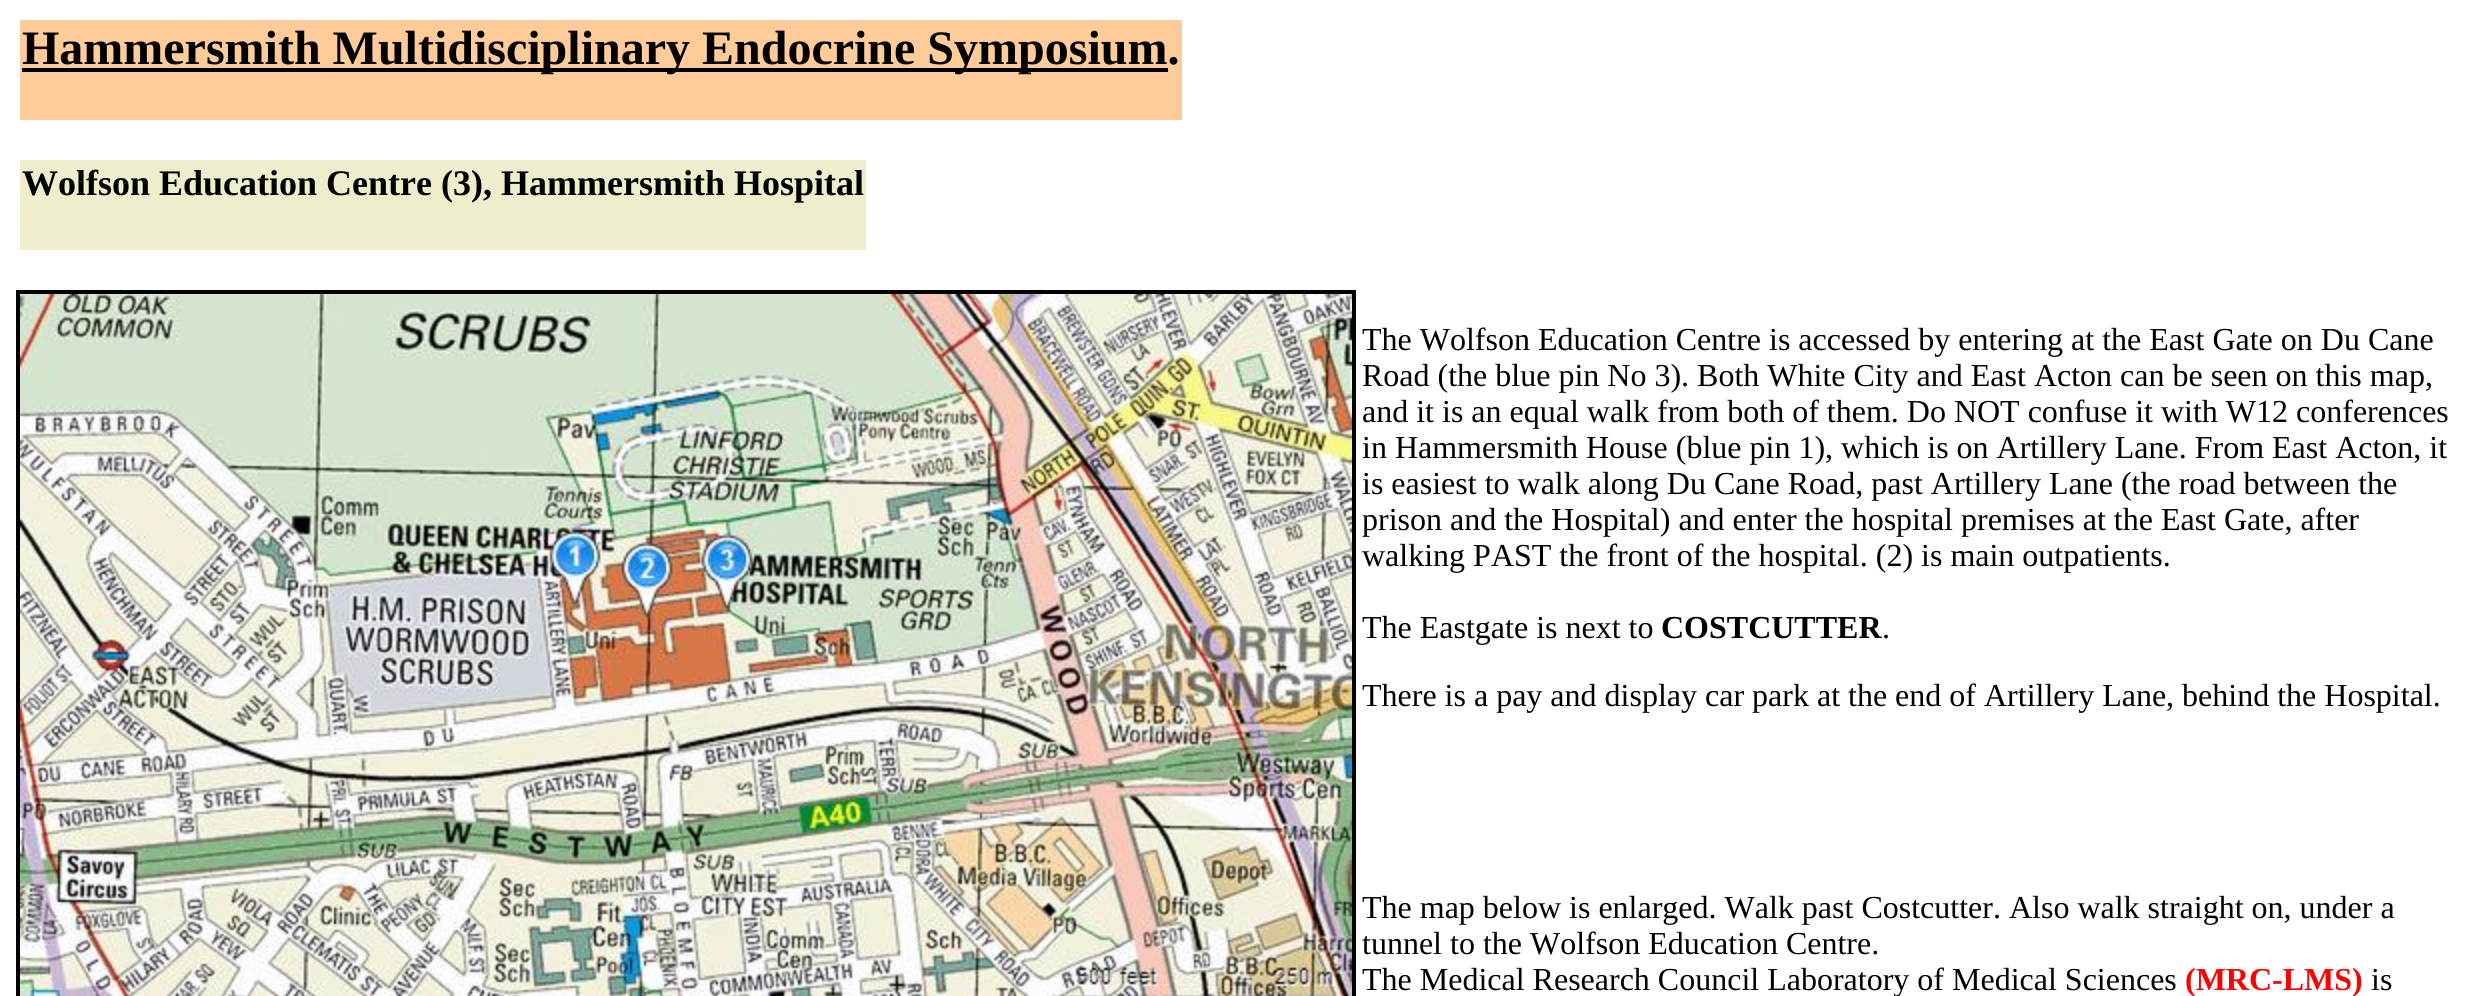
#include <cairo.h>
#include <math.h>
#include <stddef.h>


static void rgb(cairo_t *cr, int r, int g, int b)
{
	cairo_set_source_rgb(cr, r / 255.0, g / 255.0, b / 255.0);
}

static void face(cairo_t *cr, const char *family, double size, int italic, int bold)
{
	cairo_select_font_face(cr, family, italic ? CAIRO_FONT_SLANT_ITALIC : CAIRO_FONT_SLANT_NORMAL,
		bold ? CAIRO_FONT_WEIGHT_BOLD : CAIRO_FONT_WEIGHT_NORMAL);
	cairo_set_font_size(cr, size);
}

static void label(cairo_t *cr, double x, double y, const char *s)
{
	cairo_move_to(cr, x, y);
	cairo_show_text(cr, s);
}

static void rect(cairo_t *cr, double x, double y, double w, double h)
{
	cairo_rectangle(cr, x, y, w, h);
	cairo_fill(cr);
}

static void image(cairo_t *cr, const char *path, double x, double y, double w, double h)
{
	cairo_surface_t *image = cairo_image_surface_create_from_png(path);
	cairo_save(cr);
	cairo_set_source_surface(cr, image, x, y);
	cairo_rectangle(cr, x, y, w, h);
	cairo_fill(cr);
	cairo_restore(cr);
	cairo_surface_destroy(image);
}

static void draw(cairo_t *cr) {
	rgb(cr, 255, 255, 255);
	cairo_paint(cr);
	rgb(cr, 255, 204, 153);
	rect(cr, 20, 20, 1162, 100);
	rgb(cr, 0, 0, 0);
	rect(cr, 22, 68, 1146, 4);
	face(cr, "Liberation Serif", 48, 0, 1);
	label(cr, 22, 64, "Hammersmith Multidisciplinary Endocrine Symposium.");
	rgb(cr, 238, 238, 204);
	rect(cr, 20, 160, 846, 90);
	face(cr, "Liberation Serif", 36, 0, 1);
	rgb(cr, 0, 0, 0);
	label(cr, 22, 195, "Wolfson Education Centre (3), Hammersmith Hospital");
	cairo_rectangle(cr, 18, 292, 1336, 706);
	cairo_set_line_width(cr, 4);
	cairo_stroke(cr);
	image(cr, "image0.png", 20, 294, 1332, 702);
	face(cr, "Liberation Serif", 32, 0, 0);
	label(cr, 1362, 350, "The Wolfson Education Centre is accessed by entering at the East Gate on Du Cane");
	label(cr, 1362, 386, "Road (the blue pin No 3). Both White City and East Acton can be seen on this map,");
	label(cr, 1362, 422, "and it is an equal walk from both of them. Do NOT confuse it with W12 conferences");
	label(cr, 1362, 458, "in Hammersmith House (blue pin 1), which is on Artillery Lane. From East Acton, it");
	label(cr, 1362, 494, "is easiest to walk along Du Cane Road, past Artillery Lane (the road between the");
	label(cr, 1362, 530, "prison and the Hospital) and enter the hospital premises at the East Gate, after");
	label(cr, 1362, 566, "walking PAST the front of the hospital. (2) is main outpatients.");
	label(cr, 1362, 638, "The Eastgate is next to");
	face(cr, "Liberation Serif", 32, 0, 1);
	label(cr, 1661, 638, "COSTCUTTER");
	face(cr, "Liberation Serif", 32, 0, 0);
	label(cr, 1882, 638, ".");
	label(cr, 1362, 706, "There is a pay and display car park at the end of Artillery Lane, behind the Hospital.");
	label(cr, 1362, 918, "The map below is enlarged. Walk past Costcutter. Also walk straight on, under a");
	label(cr, 1362, 954, "tunnel to the Wolfson Education Centre.");
	label(cr, 1362, 990, "The Medical Research Council Laboratory of Medical Sciences");
	face(cr, "Liberation Serif", 32, 0, 1);
	rgb(cr, 255, 0, 0);
	label(cr, 2185, 990, "(MRC-LMS)");
	face(cr, "Liberation Serif", 32, 0, 0);
	rgb(cr, 0, 0, 0);
	label(cr, 2371, 990, "is");
}

int main(void) {
	cairo_surface_t *surface = cairo_image_surface_create(CAIRO_FORMAT_RGB24, 2472, 996);
	cairo_t *cr = cairo_create(surface);
	cairo_font_options_t *options = cairo_font_options_create();
	cairo_font_options_set_hint_metrics(options, CAIRO_HINT_METRICS_OFF);
	cairo_font_options_set_hint_style(options, CAIRO_HINT_STYLE_NONE);
	cairo_set_font_options(cr, options);
	cairo_set_miter_limit(cr, 4);
	draw(cr);
	cairo_surface_write_to_png(surface, "render.png");
	cairo_font_options_destroy(options);
	cairo_destroy(cr);
	cairo_surface_destroy(surface);
	return 0;
}
